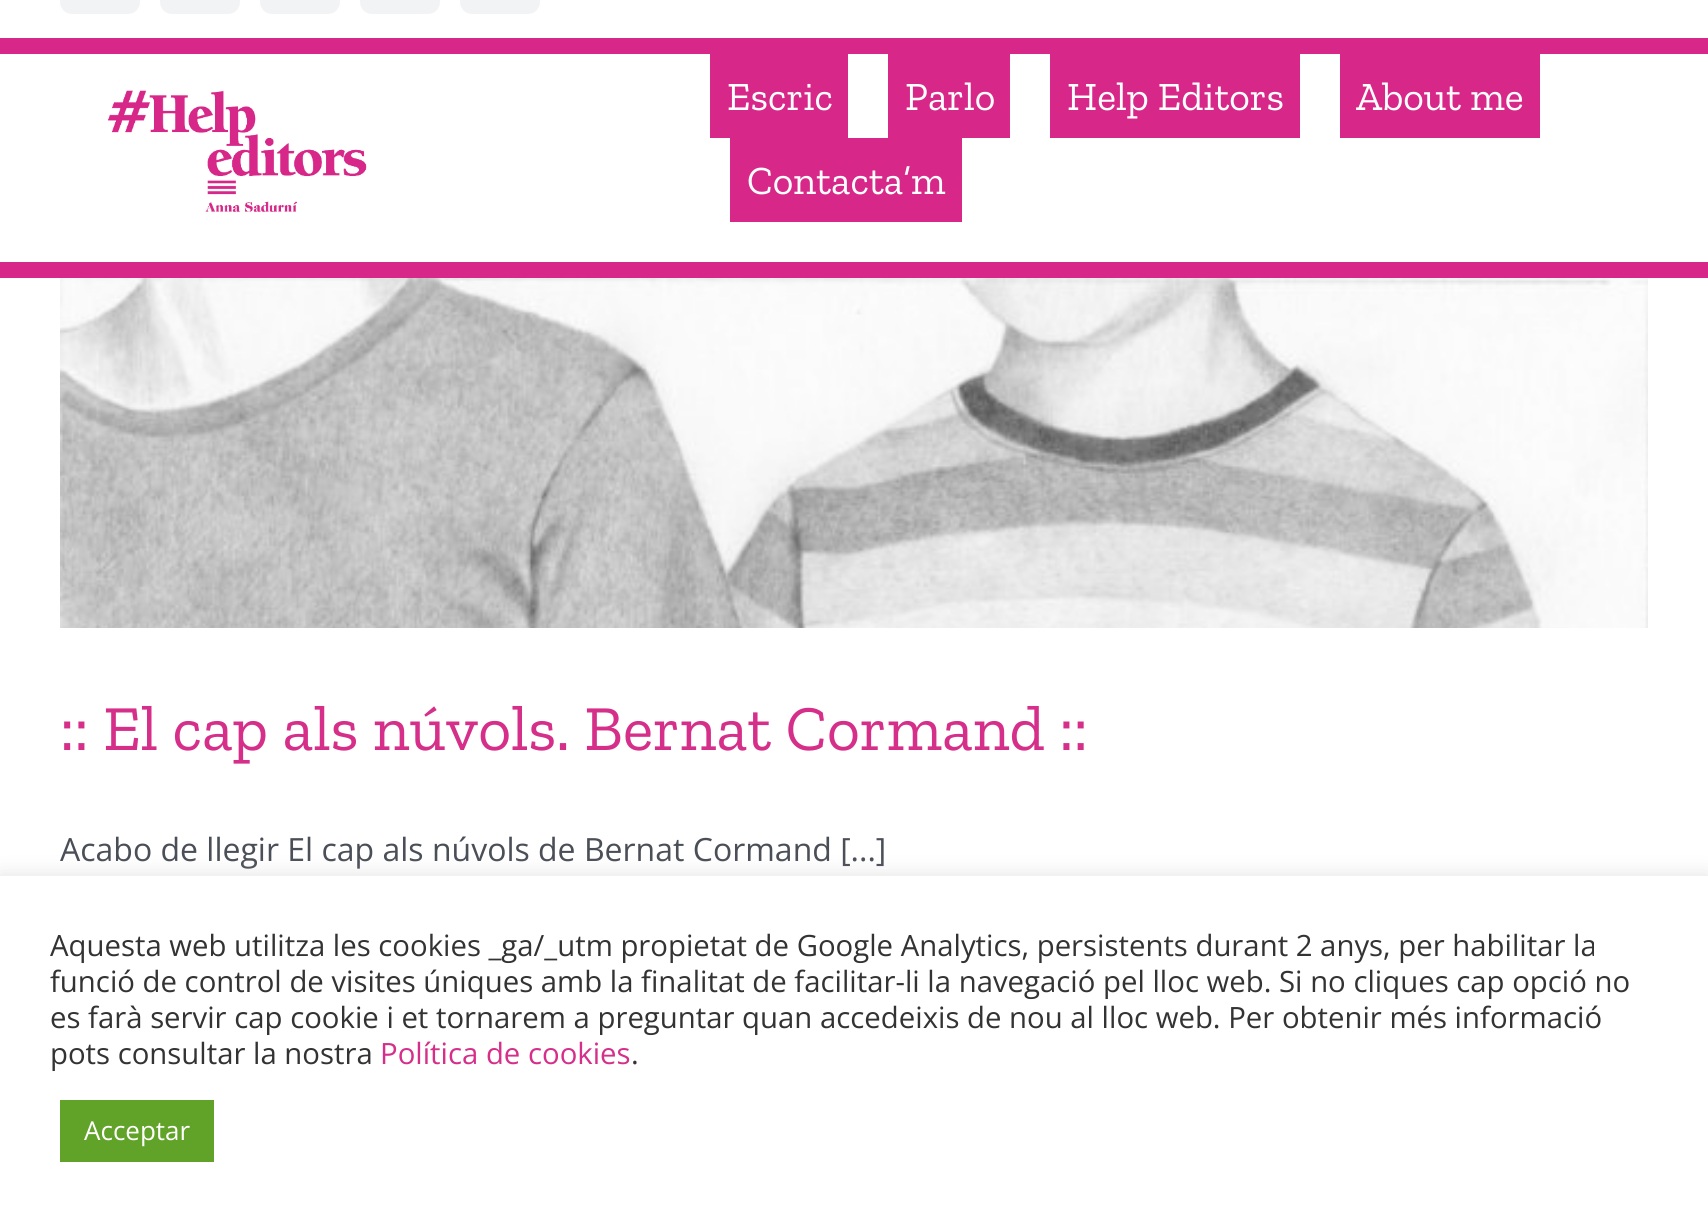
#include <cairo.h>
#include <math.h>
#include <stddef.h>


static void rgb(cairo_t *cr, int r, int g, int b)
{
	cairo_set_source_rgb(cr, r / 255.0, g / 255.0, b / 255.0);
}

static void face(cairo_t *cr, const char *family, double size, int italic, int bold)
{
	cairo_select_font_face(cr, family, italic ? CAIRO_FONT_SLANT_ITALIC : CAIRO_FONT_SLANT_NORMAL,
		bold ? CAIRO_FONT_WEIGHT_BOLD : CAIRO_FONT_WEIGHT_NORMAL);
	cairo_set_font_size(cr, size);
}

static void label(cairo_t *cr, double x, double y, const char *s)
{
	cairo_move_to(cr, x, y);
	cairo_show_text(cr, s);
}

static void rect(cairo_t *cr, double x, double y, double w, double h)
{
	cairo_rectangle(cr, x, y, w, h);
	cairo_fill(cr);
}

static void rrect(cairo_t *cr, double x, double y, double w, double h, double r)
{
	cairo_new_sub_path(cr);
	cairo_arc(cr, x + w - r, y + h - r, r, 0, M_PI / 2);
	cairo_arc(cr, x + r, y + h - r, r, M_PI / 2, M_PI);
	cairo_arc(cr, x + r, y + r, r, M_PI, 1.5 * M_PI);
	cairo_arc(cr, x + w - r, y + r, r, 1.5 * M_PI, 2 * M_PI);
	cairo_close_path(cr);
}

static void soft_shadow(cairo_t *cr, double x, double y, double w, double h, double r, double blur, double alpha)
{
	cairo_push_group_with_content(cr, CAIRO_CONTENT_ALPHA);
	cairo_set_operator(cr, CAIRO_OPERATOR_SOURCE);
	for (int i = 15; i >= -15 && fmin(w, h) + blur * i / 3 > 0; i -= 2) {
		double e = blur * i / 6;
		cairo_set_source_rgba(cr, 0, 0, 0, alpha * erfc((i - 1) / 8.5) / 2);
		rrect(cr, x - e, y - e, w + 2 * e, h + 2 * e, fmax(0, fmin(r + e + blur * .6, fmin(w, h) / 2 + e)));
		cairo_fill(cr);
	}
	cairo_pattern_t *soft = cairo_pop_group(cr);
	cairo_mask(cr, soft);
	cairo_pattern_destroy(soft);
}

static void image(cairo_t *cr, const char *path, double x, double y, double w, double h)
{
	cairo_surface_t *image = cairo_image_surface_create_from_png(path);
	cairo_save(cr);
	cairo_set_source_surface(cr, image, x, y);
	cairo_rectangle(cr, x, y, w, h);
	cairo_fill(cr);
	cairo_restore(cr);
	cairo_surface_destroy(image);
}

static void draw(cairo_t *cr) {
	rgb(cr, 255, 255, 255);
	cairo_paint(cr);
	rgb(cr, 215, 40, 137);
	rect(cr, 0, 38, 1708, 16);
	rgb(cr, 242, 243, 245);
	rrect(cr, 60, -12, 80, 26, 12);
	cairo_fill(cr);
	rrect(cr, 160, -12, 80, 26, 12);
	cairo_fill(cr);
	rrect(cr, 260, -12, 80, 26, 12);
	cairo_fill(cr);
	rrect(cr, 360, -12, 80, 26, 12);
	cairo_fill(cr);
	rrect(cr, 460, -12, 80, 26, 12);
	cairo_fill(cr);
	rgb(cr, 215, 40, 137);
	rect(cr, 0, 262, 1708, 16);
	image(cr, "image0.png", 107, 90, 260, 122);
	rect(cr, 710, 54, 138, 84);
	face(cr, "Zilla Slab", 40, 0, 0);
	rgb(cr, 255, 255, 255);
	label(cr, 727, 110, "Escric");
	rgb(cr, 215, 40, 137);
	rect(cr, 888, 54, 122, 84);
	rgb(cr, 255, 255, 255);
	label(cr, 905, 110, "Parlo");
	rgb(cr, 215, 40, 137);
	rect(cr, 1050, 54, 250, 84);
	rgb(cr, 255, 255, 255);
	label(cr, 1067, 110, "Help Editors");
	rgb(cr, 215, 40, 137);
	rect(cr, 1340, 54, 200, 84);
	rgb(cr, 255, 255, 255);
	label(cr, 1356, 110, "About me");
	rgb(cr, 215, 40, 137);
	rect(cr, 730, 138, 232, 84);
	rgb(cr, 255, 255, 255);
	label(cr, 747, 194, "Contacta’m");
	image(cr, "image1.png", 60, 278, 1588, 350);
	face(cr, "Zilla Slab", 64, 0, 0);
	rgb(cr, 213, 47, 137);
	label(cr, 60, 750, ":: El cap als núvols. Bernat Cormand ::");
	face(cr, "Open Sans", 32, 0, 0);
	rgb(cr, 74, 78, 87);
	label(cr, 60, 861, "Acabo de llegir El cap als núvols de Bernat Cormand [...]");
	rgb(cr, 172, 171, 171);
	soft_shadow(cr, 0, 874, 1708, 346, 0, 10, 0.3);
	rgb(cr, 255, 255, 255);
	rect(cr, 0, 876, 1708, 345);
	face(cr, "Open Sans", 29.33, 0, 0);
	rgb(cr, 51, 51, 51);
	label(cr, 50, 956, "Aquesta web utilitza les cookies _ga/_utm propietat de Google Analytics, persistents durant 2 anys, per habilitar la");
	label(cr, 50, 992, "funció de control de visites úniques amb la finalitat de facilitar-li la navegació pel lloc web. Si no cliques cap opció no");
	label(cr, 50, 1028, "es farà servir cap cookie i et tornarem a preguntar quan accedeixis de nou al lloc web. Per obtenir més informació");
	label(cr, 50, 1064, "pots consultar la nostra");
	rgb(cr, 213, 47, 137);
	label(cr, 380, 1064, "Política de cookies");
	rgb(cr, 51, 51, 51);
	label(cr, 631, 1064, ".");
	rgb(cr, 97, 162, 41);
	rect(cr, 60, 1100, 154, 62);
	face(cr, "Open Sans", 26, 0, 0);
	rgb(cr, 255, 255, 255);
	label(cr, 84, 1140, "Acceptar");
}

int main(void) {
	cairo_surface_t *surface = cairo_image_surface_create(CAIRO_FORMAT_RGB24, 1708, 1221);
	cairo_t *cr = cairo_create(surface);
	cairo_font_options_t *options = cairo_font_options_create();
	cairo_font_options_set_hint_metrics(options, CAIRO_HINT_METRICS_OFF);
	cairo_font_options_set_hint_style(options, CAIRO_HINT_STYLE_NONE);
	cairo_set_font_options(cr, options);
	cairo_set_miter_limit(cr, 4);
	draw(cr);
	cairo_surface_write_to_png(surface, "render.png");
	cairo_font_options_destroy(options);
	cairo_destroy(cr);
	cairo_surface_destroy(surface);
	return 0;
}
